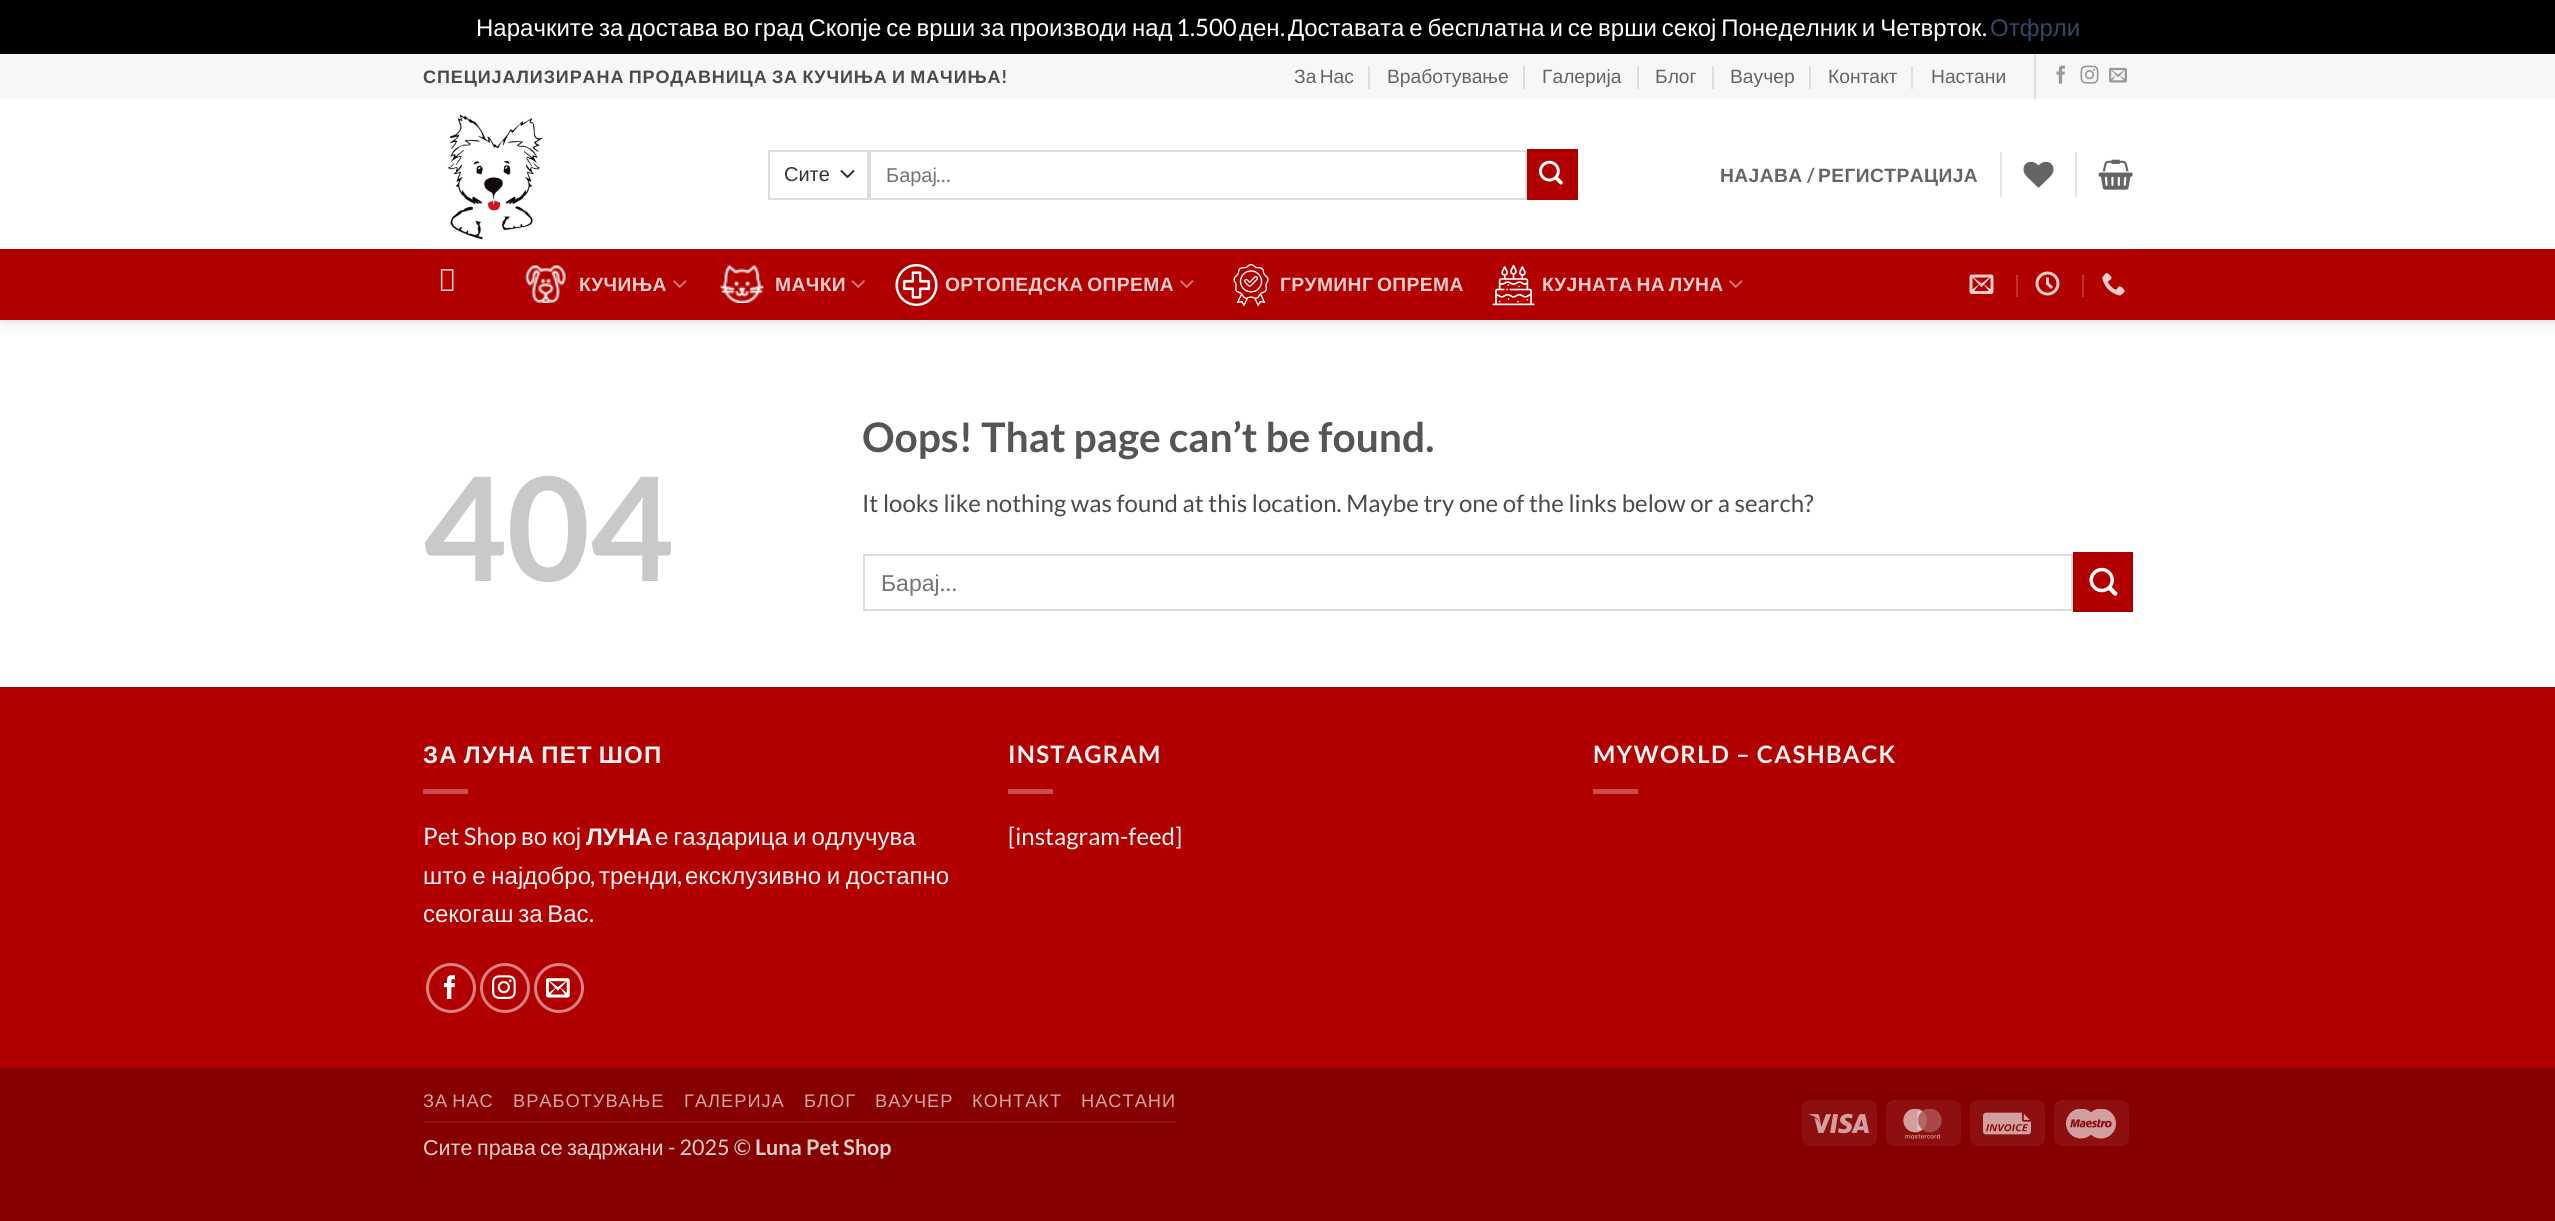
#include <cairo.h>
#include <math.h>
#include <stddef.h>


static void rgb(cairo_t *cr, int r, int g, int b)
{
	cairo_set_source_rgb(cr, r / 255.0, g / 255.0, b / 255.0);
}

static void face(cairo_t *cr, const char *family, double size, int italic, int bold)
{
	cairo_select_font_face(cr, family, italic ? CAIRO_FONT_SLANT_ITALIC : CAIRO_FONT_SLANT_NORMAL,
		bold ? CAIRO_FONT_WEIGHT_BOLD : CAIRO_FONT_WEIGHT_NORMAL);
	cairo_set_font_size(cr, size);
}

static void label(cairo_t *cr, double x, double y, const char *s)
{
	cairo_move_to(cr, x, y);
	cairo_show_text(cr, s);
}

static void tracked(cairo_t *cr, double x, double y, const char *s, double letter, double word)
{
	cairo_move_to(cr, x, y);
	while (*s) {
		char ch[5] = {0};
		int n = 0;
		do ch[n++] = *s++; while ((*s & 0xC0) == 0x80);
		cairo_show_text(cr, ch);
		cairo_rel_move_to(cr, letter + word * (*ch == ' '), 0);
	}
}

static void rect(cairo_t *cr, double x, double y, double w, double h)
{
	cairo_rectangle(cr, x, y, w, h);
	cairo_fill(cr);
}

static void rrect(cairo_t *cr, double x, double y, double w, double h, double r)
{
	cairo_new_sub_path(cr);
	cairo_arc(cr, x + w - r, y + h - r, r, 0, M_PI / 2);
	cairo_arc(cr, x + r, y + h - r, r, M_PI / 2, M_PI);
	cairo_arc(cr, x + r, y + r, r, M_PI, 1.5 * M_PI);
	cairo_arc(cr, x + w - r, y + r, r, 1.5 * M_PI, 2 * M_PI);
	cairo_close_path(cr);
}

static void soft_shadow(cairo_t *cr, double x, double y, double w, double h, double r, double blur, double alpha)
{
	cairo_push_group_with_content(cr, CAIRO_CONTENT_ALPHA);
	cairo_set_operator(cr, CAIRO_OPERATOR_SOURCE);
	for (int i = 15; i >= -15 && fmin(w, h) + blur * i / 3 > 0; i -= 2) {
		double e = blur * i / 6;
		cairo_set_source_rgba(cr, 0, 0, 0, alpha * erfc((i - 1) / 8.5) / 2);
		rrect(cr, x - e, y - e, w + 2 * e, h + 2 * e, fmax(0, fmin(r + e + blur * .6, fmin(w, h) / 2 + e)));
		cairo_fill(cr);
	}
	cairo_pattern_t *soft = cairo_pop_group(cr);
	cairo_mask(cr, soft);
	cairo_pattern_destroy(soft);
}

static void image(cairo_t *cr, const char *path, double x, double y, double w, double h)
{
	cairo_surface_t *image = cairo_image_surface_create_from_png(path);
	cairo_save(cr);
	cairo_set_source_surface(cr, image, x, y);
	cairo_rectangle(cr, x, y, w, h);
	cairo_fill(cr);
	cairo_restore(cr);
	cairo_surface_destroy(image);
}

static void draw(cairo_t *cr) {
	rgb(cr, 134, 0, 0);
	cairo_paint(cr);
	rgb(cr, 0, 0, 0);
	rect(cr, 0, 0, 2555, 54);
	face(cr, "Liberation Sans", 24, 0, 0);
	rgb(cr, 255, 255, 255);
	tracked(cr, 476, 36, "Нарачките за достава во град Скопје се врши за производи над", 0, -1.75);
	face(cr, "Lato", 24, 0, 0);
	label(cr, 1176, 36, "1.500");
	face(cr, "Liberation Sans", 24, 0, 0);
	label(cr, 1239, 36, "ден");
	face(cr, "Lato", 24, 0, 0);
	label(cr, 1280, 36, ".");
	face(cr, "Liberation Sans", 24, 0, 0);
	tracked(cr, 1288, 36, "Доставата е бесплатна и се врши секој Понеделник и Четврток", 0, -1.75);
	face(cr, "Lato", 24, 0, 0);
	label(cr, 1982, 36, ".");
	face(cr, "Liberation Sans", 24, 0, 0);
	rgb(cr, 51, 72, 98);
	label(cr, 1990, 36, "Отфрли");
	rgb(cr, 255, 255, 255);
	rect(cr, 0, 99, 2555, 588);
	cairo_save(cr);
	cairo_set_fill_rule(cr, CAIRO_FILL_RULE_EVEN_ODD);
	cairo_new_path(cr);
	cairo_move_to(cr, 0, 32);
	cairo_line_to(cr, 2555, 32);
	cairo_line_to(cr, 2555, 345);
	cairo_line_to(cr, 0, 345);
	cairo_close_path(cr);
	cairo_move_to(cr, 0, 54);
	cairo_line_to(cr, 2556, 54);
	cairo_line_to(cr, 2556, 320);
	cairo_line_to(cr, 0, 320);
	cairo_close_path(cr);
	cairo_clip(cr);
	rgb(cr, 0, 0, 0);
	soft_shadow(cr, 2, 56, 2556, 265, 0, 7.5, 0.15);
	cairo_restore(cr);
	rgb(cr, 247, 247, 247);
	rect(cr, 0, 54, 2555, 45);
	face(cr, "Liberation Sans", 18, 0, 1);
	rgb(cr, 74, 74, 74);
	tracked(cr, 423, 83, "СПЕЦИЈАЛИЗИРАНА ПРОДАВНИЦА ЗА КУЧИЊА И МАЧИЊА", 0.9, -1.5);
	face(cr, "Lato", 18, 0, 1);
	tracked(cr, 1001, 83, "!", 0.9, 0);
	face(cr, "Liberation Sans", 19.25, 0, 0);
	rgb(cr, 101, 101, 101);
	tracked(cr, 1294, 83, "За Нас", 0, -2);
	rgb(cr, 222, 222, 222);
	rect(cr, 1368, 66, 2, 23);
	rgb(cr, 101, 101, 101);
	label(cr, 1387, 83, "Вработување");
	rgb(cr, 222, 222, 222);
	rect(cr, 1523, 66, 2, 23);
	rgb(cr, 101, 101, 101);
	label(cr, 1542, 83, "Галерија");
	rgb(cr, 222, 222, 222);
	rect(cr, 1637, 66, 2, 23);
	rgb(cr, 101, 101, 101);
	label(cr, 1655, 83, "Блог");
	rgb(cr, 222, 222, 222);
	rect(cr, 1712, 66, 2, 23);
	rgb(cr, 101, 101, 101);
	label(cr, 1730, 83, "Ваучер");
	rgb(cr, 222, 222, 222);
	rect(cr, 1809, 66, 2, 23);
	rgb(cr, 101, 101, 101);
	label(cr, 1828, 83, "Контакт");
	rgb(cr, 222, 222, 222);
	rect(cr, 1911, 66, 2, 23);
	rgb(cr, 101, 101, 101);
	label(cr, 1931, 83, "Настани");
	rgb(cr, 222, 222, 222);
	rect(cr, 2034, 54, 2, 45);
	image(cr, "image0.png", 2056, 65, 9, 19);
	image(cr, "image1.png", 2080, 65, 19, 19);
	image(cr, "image2.png", 2109, 67, 18, 16);
	image(cr, "image3.png", 447, 114, 96, 126);
	cairo_new_path(cr);
	cairo_move_to(cr, 841.5, 171);
	cairo_line_to(cr, 847.5, 177);
	cairo_line_to(cr, 853.5, 171);
	rgb(cr, 51, 51, 51);
	cairo_set_line_cap(cr, CAIRO_LINE_CAP_ROUND);
	cairo_set_line_join(cr, CAIRO_LINE_JOIN_ROUND);
	cairo_stroke(cr);
	cairo_rectangle(cr, 769, 151, 99, 48);
	rgb(cr, 221, 221, 221);
	cairo_set_line_cap(cr, CAIRO_LINE_CAP_BUTT);
	cairo_set_line_join(cr, CAIRO_LINE_JOIN_MITER);
	cairo_stroke(cr);
	face(cr, "Liberation Sans", 20, 0, 0);
	rgb(cr, 51, 51, 51);
	label(cr, 784, 181, "Сите");
	cairo_rectangle(cr, 870, 151, 656, 48);
	rgb(cr, 221, 221, 221);
	cairo_stroke(cr);
	rgb(cr, 117, 117, 117);
	label(cr, 886, 182, "Барај");
	face(cr, "Lato", 20, 0, 0);
	label(cr, 936, 182, "…");
	rgb(cr, 178, 0, 0);
	cairo_rectangle(cr, 1528, 150, 49, 49);
	cairo_fill_preserve(cr);
	rgb(cr, 169, 0, 0);
	cairo_stroke(cr);
	image(cr, "image4.png", 1539, 160, 24, 25);
	face(cr, "Liberation Sans", 19.25, 0, 1);
	rgb(cr, 101, 101, 101);
	tracked(cr, 1720, 182, "НАЈАВА", 0.4, 0);
	face(cr, "Lato", 19.25, 0, 1);
	tracked(cr, 1807, 182, "/", 0.4, 0);
	face(cr, "Liberation Sans", 19.25, 0, 1);
	tracked(cr, 1818, 182, "РЕГИСТРАЦИЈА", 0.4, 0);
	rgb(cr, 230, 230, 230);
	rect(cr, 2000, 152, 2, 45);
	image(cr, "image5.png", 2023, 161, 31, 27);
	rect(cr, 2075, 152, 2, 45);
	image(cr, "image6.png", 2098, 159, 35, 31);
	rgb(cr, 178, 0, 0);
	rect(cr, 0, 249, 2555, 71);
	rgb(cr, 168, 7, 7);
	rect(cr, 423, 249, 1710, 2);
	image(cr, "image7.png", 440, 269, 14, 22);
	image(cr, "image8.png", 524, 265, 42, 38);
	rgb(cr, 240, 204, 204);
	tracked(cr, 579, 291, "КУЧИЊА", 0.4, 0);
	image(cr, "image9.png", 673, 280, 14, 8);
	image(cr, "image10.png", 719, 265, 45, 38);
	tracked(cr, 775, 291, "МАЧКИ", 0.4, 0);
	image(cr, "image11.png", 851, 280, 14, 8);
	image(cr, "image12.png", 895, 264, 43, 42);
	tracked(cr, 945, 291, "ОРТОПЕДСКА ОПРЕМА", 0.4, -2);
	image(cr, "image9.png", 1180, 280, 14, 8);
	image(cr, "image13.png", 1233, 264, 36, 42);
	tracked(cr, 1280, 291, "ГРУМИНГ ОПРЕМА", 0.4, -2);
	image(cr, "image14.png", 1492, 264, 43, 42);
	tracked(cr, 1542, 291, "КУЈНАТА НА ЛУНА", 0.4, -2);
	image(cr, "image9.png", 1729, 280, 14, 8);
	image(cr, "image15.png", 1969, 274, 25, 20);
	rgb(cr, 193, 51, 51);
	rect(cr, 2016, 275, 2, 22);
	image(cr, "image16.png", 2035, 271, 25, 25);
	rect(cr, 2082, 275, 2, 22);
	image(cr, "image17.png", 2102, 273, 23, 23);
	face(cr, "Lato", 144, 0, 1);
	rgb(cr, 201, 201, 201);
	label(cr, 423, 581, "404");
	face(cr, "Lato", 40.75, 0, 1);
	rgb(cr, 85, 85, 85);
	label(cr, 862, 452, "Oops! That page can’t be found.");
	face(cr, "Lato", 24, 0, 0);
	rgb(cr, 74, 74, 74);
	label(cr, 862, 512, "It looks like nothing was found at this location. Maybe try one of the links below or a search?");
	cairo_rectangle(cr, 864, 555, 1208, 55);
	rgb(cr, 221, 221, 221);
	cairo_stroke(cr);
	face(cr, "Liberation Sans", 23, 0, 0);
	rgb(cr, 117, 117, 117);
	label(cr, 881, 591, "Барај");
	face(cr, "Lato", 23, 0, 0);
	label(cr, 940, 591, "…");
	rgb(cr, 178, 0, 0);
	cairo_rectangle(cr, 2074, 553, 58, 58);
	cairo_fill_preserve(cr);
	rgb(cr, 169, 0, 0);
	cairo_stroke(cr);
	image(cr, "image18.png", 2089, 567, 29, 29);
	rgb(cr, 178, 0, 0);
	rect(cr, 0, 689, 2555, 379);
	rgb(cr, 169, 0, 0);
	rect(cr, 0, 687, 2555, 2);
	face(cr, "Liberation Sans", 24, 0, 1);
	rgb(cr, 241, 241, 241);
	tracked(cr, 423, 763, "ЗА ЛУНА ПЕТ ШОП", 1.25, -2);
	rgb(cr, 201, 77, 77);
	rect(cr, 423, 789, 45, 5);
	face(cr, "Lato", 24, 0, 0);
	rgb(cr, 241, 241, 241);
	label(cr, 423, 845, "Pet Shop");
	face(cr, "Liberation Sans", 24, 0, 0);
	label(cr, 521, 845, "во");
	label(cr, 552, 845, "кој");
	face(cr, "Liberation Sans", 24, 0, 1);
	label(cr, 586, 845, "ЛУНА");
	face(cr, "Liberation Sans", 24, 0, 0);
	tracked(cr, 655, 845, "е газдарица и одлучува", 0, -1.5);
	tracked(cr, 423, 884, "што е најдобро", 0, -1);
	face(cr, "Lato", 24, 0, 0);
	label(cr, 590, 884, ",");
	face(cr, "Liberation Sans", 24, 0, 0);
	label(cr, 599, 884, "тренди");
	face(cr, "Lato", 24, 0, 0);
	label(cr, 677, 884, ",");
	face(cr, "Liberation Sans", 24, 0, 0);
	tracked(cr, 685, 884, "ексклузивно и достапно", 0, -1);
	tracked(cr, 423, 922, "секогаш за Вас", 0, -2);
	face(cr, "Lato", 24, 0, 0);
	label(cr, 589, 922, ".");
	cairo_new_path(cr);
	cairo_arc(cr, 451, 988, 23.5, 0, 2 * M_PI);
	rgb(cr, 217, 128, 128);
	cairo_set_line_width(cr, 3);
	cairo_stroke(cr);
	image(cr, "image19.png", 443, 975, 12, 24);
	cairo_arc(cr, 505, 988, 23.5, 0, 2 * M_PI);
	cairo_stroke(cr);
	image(cr, "image20.png", 492, 975, 24, 24);
	cairo_arc(cr, 559, 988, 23.5, 0, 2 * M_PI);
	cairo_stroke(cr);
	image(cr, "image21.png", 546, 978, 24, 20);
	face(cr, "Lato", 24, 0, 1);
	rgb(cr, 241, 241, 241);
	tracked(cr, 1008, 763, "INSTAGRAM", 1.25, 0);
	rgb(cr, 201, 77, 77);
	rect(cr, 1008, 789, 45, 5);
	face(cr, "Lato", 24, 0, 0);
	rgb(cr, 241, 241, 241);
	label(cr, 1008, 845, "[instagram-feed]");
	face(cr, "Lato", 24, 0, 1);
	tracked(cr, 1593, 763, "MYWORLD – CASHBACK", 1.25, 0);
	rgb(cr, 201, 77, 77);
	rect(cr, 1593, 789, 45, 5);
	rgb(cr, 142, 16, 16);
	rect(cr, 423, 1121, 753, 2);
	face(cr, "Liberation Sans", 18.25, 0, 0);
	rgb(cr, 212, 163, 163);
	tracked(cr, 423, 1107, "ЗА НАС", 1, -2);
	tracked(cr, 513, 1107, "ВРАБОТУВАЊЕ", 1, 0);
	tracked(cr, 684, 1107, "ГАЛЕРИЈА", 1, 0);
	tracked(cr, 804, 1107, "БЛОГ", 1, 0);
	tracked(cr, 875, 1107, "ВАУЧЕР", 1, 0);
	tracked(cr, 972, 1107, "КОНТАКТ", 1, 0);
	tracked(cr, 1081, 1107, "НАСТАНИ", 1, 0);
	face(cr, "Liberation Sans", 21.5, 0, 0);
	rgb(cr, 231, 204, 204);
	label(cr, 423, 1155, "Сите");
	label(cr, 477, 1155, "права");
	label(cr, 540, 1155, "се");
	label(cr, 567, 1155, "задржани");
	face(cr, "Lato", 21.5, 0, 0);
	label(cr, 668, 1155, "- 2025 ©");
	face(cr, "Lato", 21.5, 0, 1);
	label(cr, 755, 1155, "Luna Pet Shop");
	rgb(cr, 141, 15, 15);
	rrect(cr, 1802, 1100, 75, 46, 8);
	cairo_fill(cr);
	image(cr, "image22.png", 1809, 1113, 60, 21);
	rrect(cr, 1886, 1100, 75, 46, 8);
	cairo_fill(cr);
	image(cr, "image23.png", 1903, 1109, 39, 30);
	rrect(cr, 1970, 1100, 75, 46, 8);
	cairo_fill(cr);
	image(cr, "image24.png", 1983, 1112, 48, 23);
	rrect(cr, 2054, 1100, 75, 46, 8);
	cairo_fill(cr);
	image(cr, "image25.png", 2066, 1109, 50, 30);
}

int main(void) {
	cairo_surface_t *surface = cairo_image_surface_create(CAIRO_FORMAT_RGB24, 2555, 1221);
	cairo_t *cr = cairo_create(surface);
	cairo_font_options_t *options = cairo_font_options_create();
	cairo_font_options_set_hint_metrics(options, CAIRO_HINT_METRICS_OFF);
	cairo_font_options_set_hint_style(options, CAIRO_HINT_STYLE_NONE);
	cairo_set_font_options(cr, options);
	cairo_set_miter_limit(cr, 4);
	draw(cr);
	cairo_surface_write_to_png(surface, "render.png");
	cairo_font_options_destroy(options);
	cairo_destroy(cr);
	cairo_surface_destroy(surface);
	return 0;
}
